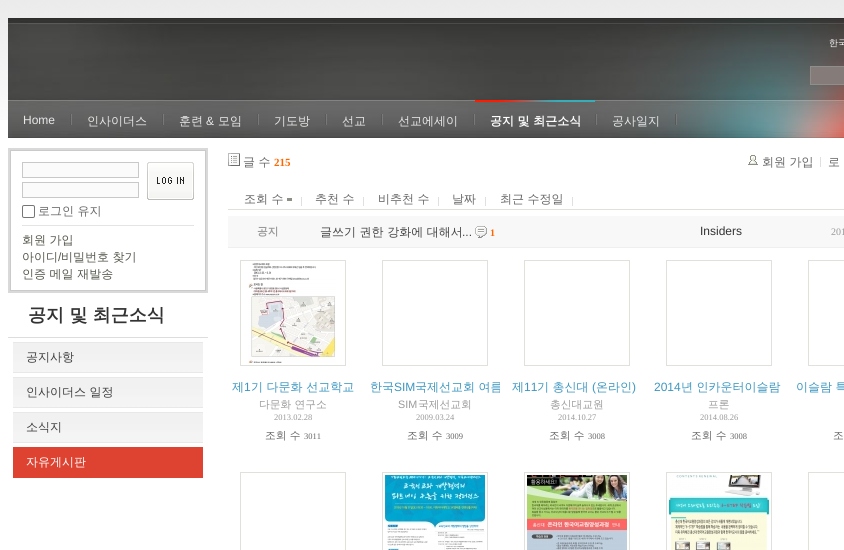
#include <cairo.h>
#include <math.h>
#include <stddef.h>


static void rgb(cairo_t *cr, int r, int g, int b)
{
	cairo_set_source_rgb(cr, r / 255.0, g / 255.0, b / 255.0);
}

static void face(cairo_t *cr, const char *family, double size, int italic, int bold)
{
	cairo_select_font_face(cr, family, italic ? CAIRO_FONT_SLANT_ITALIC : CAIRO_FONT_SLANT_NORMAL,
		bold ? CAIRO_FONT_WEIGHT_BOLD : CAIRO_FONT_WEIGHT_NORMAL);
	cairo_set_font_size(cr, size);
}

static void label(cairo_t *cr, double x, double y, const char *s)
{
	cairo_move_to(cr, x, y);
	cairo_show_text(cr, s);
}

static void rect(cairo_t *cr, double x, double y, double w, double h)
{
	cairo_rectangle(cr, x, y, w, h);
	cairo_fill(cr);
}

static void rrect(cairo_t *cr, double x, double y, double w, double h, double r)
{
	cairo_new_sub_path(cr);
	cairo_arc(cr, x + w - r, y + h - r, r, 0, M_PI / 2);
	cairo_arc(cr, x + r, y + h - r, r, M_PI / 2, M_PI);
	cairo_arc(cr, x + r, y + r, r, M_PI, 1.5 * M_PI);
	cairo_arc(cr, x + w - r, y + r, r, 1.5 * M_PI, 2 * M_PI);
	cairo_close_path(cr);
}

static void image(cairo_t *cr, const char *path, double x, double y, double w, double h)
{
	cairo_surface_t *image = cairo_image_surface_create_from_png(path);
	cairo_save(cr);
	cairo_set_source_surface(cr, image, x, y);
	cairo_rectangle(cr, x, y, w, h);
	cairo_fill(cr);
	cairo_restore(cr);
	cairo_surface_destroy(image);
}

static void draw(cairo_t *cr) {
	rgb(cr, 255, 255, 255);
	cairo_paint(cr);
	image(cr, "image0.png", 0, 0, 844, 120);
	image(cr, "image1.png", 8, 18, 836, 120);
	face(cr, "WenQuanYi Zen Hei Medium", 9, 0, 0);
	rgb(cr, 255, 255, 255);
	label(cr, 829, 46, "한국");
	rgb(cr, 133, 124, 121);
	cairo_rectangle(cr, 810.5, 66.5, 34, 18);
	cairo_fill_preserve(cr);
	rgb(cr, 142, 142, 141);
	cairo_set_line_width(cr, 1);
	cairo_stroke(cr);
	face(cr, "Liberation Sans", 12, 0, 0);
	rgb(cr, 232, 232, 232);
	label(cr, 23, 124, "Home");
	image(cr, "image2.png", 70, 114, 2, 11);
	face(cr, "WenQuanYi Zen Hei Medium", 12, 0, 0);
	label(cr, 87, 125, "인사이더스");
	image(cr, "image2.png", 162, 114, 2, 11);
	label(cr, 179, 125, "훈련");
	face(cr, "Liberation Sans", 12, 0, 0);
	label(cr, 206, 125, "&");
	face(cr, "WenQuanYi Zen Hei Medium", 12, 0, 0);
	label(cr, 218, 125, "모임");
	image(cr, "image2.png", 257, 114, 2, 11);
	label(cr, 274, 125, "기도방");
	image(cr, "image2.png", 325, 114, 2, 11);
	label(cr, 342, 125, "선교");
	image(cr, "image2.png", 381, 114, 2, 11);
	label(cr, 398, 125, "선교에세이");
	image(cr, "image2.png", 473, 114, 2, 11);
	image(cr, "image3.png", 475, 100, 120, 2);
	face(cr, "WenQuanYi Zen Hei", 12, 0, 1);
	rgb(cr, 255, 255, 255);
	label(cr, 490, 125, "공지 및 최근소식");
	image(cr, "image2.png", 595, 114, 2, 11);
	face(cr, "WenQuanYi Zen Hei Medium", 12, 0, 0);
	rgb(cr, 232, 232, 232);
	label(cr, 612, 125, "공사일지");
	image(cr, "image2.png", 675, 114, 2, 11);
	cairo_rectangle(cr, 9, 149, 198, 143);
	rgb(cr, 217, 217, 217);
	cairo_set_line_width(cr, 2);
	cairo_stroke(cr);
	cairo_rectangle(cr, 10.5, 150.5, 195, 140);
	rgb(cr, 202, 202, 202);
	cairo_set_line_width(cr, 1);
	cairo_stroke(cr);
	image(cr, "image4.png", 147, 162, 47, 38);
	rgb(cr, 251, 251, 251);
	cairo_rectangle(cr, 22.5, 162.5, 116, 15);
	cairo_fill_preserve(cr);
	rgb(cr, 201, 201, 201);
	cairo_stroke(cr);
	rgb(cr, 251, 251, 251);
	cairo_rectangle(cr, 22.5, 182.5, 116, 15);
	cairo_fill_preserve(cr);
	rgb(cr, 201, 201, 201);
	cairo_stroke(cr);
	rrect(cr, 22.5, 205.5, 12, 12, 1.5);
	rgb(cr, 118, 118, 118);
	cairo_stroke(cr);
	rgb(cr, 102, 102, 102);
	label(cr, 38, 215, "로그인 유지");
	rgb(cr, 228, 228, 228);
	rect(cr, 22, 225, 172, 1);
	rgb(cr, 84, 86, 75);
	label(cr, 22, 244, "회원 가입");
	label(cr, 22, 261, "아이디");
	face(cr, "Liberation Sans", 12, 0, 0);
	label(cr, 58, 261, "/");
	face(cr, "WenQuanYi Zen Hei Medium", 12, 0, 0);
	label(cr, 61, 261, "비밀번호 찾기");
	label(cr, 22, 278, "인증 메일 재발송");
	face(cr, "WenQuanYi Zen Hei", 18, 0, 1);
	rgb(cr, 51, 51, 51);
	label(cr, 28, 321, "공지 및 최근소식");
	rgb(cr, 221, 221, 221);
	rect(cr, 8, 337, 200, 1);
	image(cr, "image5.png", 13, 343, 190, 29);
	rgb(cr, 232, 232, 232);
	rect(cr, 13, 342, 190, 1);
	rect(cr, 13, 372, 190, 1);
	face(cr, "WenQuanYi Zen Hei Medium", 12, 0, 0);
	rgb(cr, 62, 62, 62);
	label(cr, 26, 361, "공지사항");
	image(cr, "image5.png", 13, 378, 190, 29);
	rgb(cr, 232, 232, 232);
	rect(cr, 13, 377, 190, 1);
	rect(cr, 13, 407, 190, 1);
	rgb(cr, 62, 62, 62);
	label(cr, 26, 396, "인사이더스 일정");
	image(cr, "image5.png", 13, 413, 190, 29);
	rgb(cr, 232, 232, 232);
	rect(cr, 13, 412, 190, 1);
	rect(cr, 13, 442, 190, 1);
	rgb(cr, 62, 62, 62);
	label(cr, 26, 431, "소식지");
	rgb(cr, 222, 67, 50);
	rect(cr, 13, 447, 190, 31);
	rgb(cr, 255, 255, 255);
	label(cr, 26, 466, "자유게시판");
	image(cr, "image6.png", 228, 153, 12, 13);
	rgb(cr, 102, 102, 102);
	label(cr, 243, 166, "글 수");
	face(cr, "Liberation Serif", 11, 0, 1);
	rgb(cr, 255, 102, 0);
	label(cr, 274, 166, "215");
	image(cr, "image7.png", 748, 155, 10, 10);
	face(cr, "WenQuanYi Zen Hei Medium", 12, 0, 0);
	rgb(cr, 102, 102, 102);
	label(cr, 762, 166, "회원 가입");
	label(cr, 828, 166, "로");
	rgb(cr, 224, 224, 224);
	rect(cr, 820, 157, 1, 10);
	rgb(cr, 224, 225, 219);
	rect(cr, 228, 209, 616, 1);
	rgb(cr, 102, 102, 102);
	label(cr, 244, 203, "조회 수");
	rgb(cr, 224, 224, 224);
	rect(cr, 301, 197, 1, 9);
	rgb(cr, 140, 143, 134);
	rect(cr, 287, 198, 5, 3);
	rgb(cr, 102, 102, 102);
	label(cr, 315, 203, "추천 수");
	rgb(cr, 224, 224, 224);
	rect(cr, 363, 197, 1, 9);
	rgb(cr, 102, 102, 102);
	label(cr, 378, 203, "비추천 수");
	rgb(cr, 224, 224, 224);
	rect(cr, 438, 197, 1, 9);
	rgb(cr, 102, 102, 102);
	label(cr, 452, 203, "날짜");
	rgb(cr, 224, 224, 224);
	rect(cr, 485, 197, 1, 9);
	rgb(cr, 102, 102, 102);
	label(cr, 500, 203, "최근 수정일");
	rgb(cr, 224, 224, 224);
	rect(cr, 572, 197, 1, 9);
	rgb(cr, 248, 248, 248);
	rect(cr, 228, 216, 616, 31);
	rgb(cr, 239, 240, 237);
	rect(cr, 228, 247, 616, 1);
	face(cr, "WenQuanYi Zen Hei", 10.75, 0, 1);
	rgb(cr, 153, 153, 153);
	label(cr, 257, 235, "공지");
	face(cr, "WenQuanYi Zen Hei Medium", 12, 0, 0);
	rgb(cr, 68, 68, 68);
	label(cr, 320, 236, "글쓰기 권한 강화에 대해서");
	face(cr, "Liberation Sans", 12, 0, 0);
	label(cr, 462, 236, "...");
	image(cr, "image8.png", 475, 226, 12, 12);
	face(cr, "Liberation Serif", 10, 0, 1);
	rgb(cr, 255, 102, 0);
	label(cr, 490, 236, "1");
	face(cr, "Liberation Sans", 12, 0, 0);
	rgb(cr, 51, 51, 51);
	label(cr, 700, 235, "Insiders");
	face(cr, "Liberation Serif", 10, 0, 0);
	rgb(cr, 153, 153, 153);
	label(cr, 831, 235, "201");
	cairo_rectangle(cr, 240.5, 260.5, 105, 105);
	rgb(cr, 224, 225, 219);
	cairo_stroke(cr);
	image(cr, "image9.png", 248, 263, 88, 100);
	face(cr, "WenQuanYi Zen Hei Medium", 12, 0, 0);
	rgb(cr, 59, 150, 192);
	label(cr, 232, 391, "제");
	face(cr, "Liberation Sans", 12, 0, 0);
	label(cr, 244, 391, "1");
	face(cr, "WenQuanYi Zen Hei Medium", 12, 0, 0);
	label(cr, 251, 391, "기 다문화 선교학교");
	face(cr, "WenQuanYi Zen Hei Medium", 10.75, 0, 0);
	rgb(cr, 153, 153, 153);
	label(cr, 259, 408, "다문화 연구소");
	face(cr, "Liberation Serif", 8.5, 0, 0);
	label(cr, 274, 420, "2013.02.28");
	face(cr, "WenQuanYi Zen Hei Medium", 10.75, 0, 0);
	rgb(cr, 102, 102, 102);
	label(cr, 265, 439, "조회 수");
	face(cr, "Liberation Serif", 8.5, 0, 0);
	label(cr, 304, 439, "3011");
	cairo_rectangle(cr, 382.5, 260.5, 105, 105);
	rgb(cr, 224, 225, 219);
	cairo_stroke(cr);
	face(cr, "WenQuanYi Zen Hei Medium", 12, 0, 0);
	rgb(cr, 59, 150, 192);
	label(cr, 370, 391, "한국");
	face(cr, "Liberation Sans", 12, 0, 0);
	label(cr, 394, 391, "SIM");
	cairo_save(cr);
	cairo_rectangle(cr, 370, 378, 130, 46);
	cairo_clip(cr);
	face(cr, "WenQuanYi Zen Hei Medium", 12, 0, 0);
	label(cr, 415, 391, "국제선교회 여름");
	cairo_restore(cr);
	face(cr, "Liberation Sans", 10.75, 0, 0);
	rgb(cr, 153, 153, 153);
	label(cr, 398, 408, "SIM");
	face(cr, "WenQuanYi Zen Hei Medium", 10.75, 0, 0);
	label(cr, 418, 408, "국제선교회");
	face(cr, "Liberation Serif", 8.5, 0, 0);
	label(cr, 416, 420, "2009.03.24");
	face(cr, "WenQuanYi Zen Hei Medium", 10.75, 0, 0);
	rgb(cr, 102, 102, 102);
	label(cr, 407, 439, "조회 수");
	face(cr, "Liberation Serif", 8.5, 0, 0);
	label(cr, 446, 439, "3009");
	cairo_rectangle(cr, 524.5, 260.5, 105, 105);
	rgb(cr, 224, 225, 219);
	cairo_stroke(cr);
	face(cr, "WenQuanYi Zen Hei Medium", 12, 0, 0);
	rgb(cr, 59, 150, 192);
	label(cr, 512, 391, "제");
	face(cr, "Liberation Sans", 12, 0, 0);
	label(cr, 524, 391, "11");
	face(cr, "WenQuanYi Zen Hei Medium", 12, 0, 0);
	label(cr, 537, 391, "기 총신대");
	face(cr, "Liberation Sans", 12, 0, 0);
	label(cr, 592, 391, "(");
	face(cr, "WenQuanYi Zen Hei Medium", 12, 0, 0);
	label(cr, 596, 391, "온라인");
	face(cr, "Liberation Sans", 12, 0, 0);
	label(cr, 632, 391, ")");
	face(cr, "WenQuanYi Zen Hei Medium", 10.75, 0, 0);
	rgb(cr, 153, 153, 153);
	label(cr, 550, 408, "총신대교원");
	face(cr, "Liberation Serif", 8.5, 0, 0);
	label(cr, 558, 420, "2014.10.27");
	face(cr, "WenQuanYi Zen Hei Medium", 10.75, 0, 0);
	rgb(cr, 102, 102, 102);
	label(cr, 549, 439, "조회 수");
	face(cr, "Liberation Serif", 8.5, 0, 0);
	label(cr, 588, 439, "3008");
	cairo_rectangle(cr, 666.5, 260.5, 105, 105);
	rgb(cr, 224, 225, 219);
	cairo_stroke(cr);
	face(cr, "Liberation Sans", 12, 0, 0);
	rgb(cr, 59, 150, 192);
	label(cr, 654, 391, "2014");
	face(cr, "WenQuanYi Zen Hei Medium", 12, 0, 0);
	label(cr, 681, 391, "년 인카운터이슬람");
	face(cr, "WenQuanYi Zen Hei Medium", 10.75, 0, 0);
	rgb(cr, 153, 153, 153);
	label(cr, 708, 408, "프론");
	face(cr, "Liberation Serif", 8.5, 0, 0);
	label(cr, 700, 420, "2014.08.26");
	face(cr, "WenQuanYi Zen Hei Medium", 10.75, 0, 0);
	rgb(cr, 102, 102, 102);
	label(cr, 691, 439, "조회 수");
	face(cr, "Liberation Serif", 8.5, 0, 0);
	label(cr, 730, 439, "3008");
	cairo_rectangle(cr, 808.5, 260.5, 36, 105);
	rgb(cr, 224, 225, 219);
	cairo_stroke(cr);
	face(cr, "WenQuanYi Zen Hei Medium", 12, 0, 0);
	rgb(cr, 59, 150, 192);
	label(cr, 796, 391, "이슬람 특");
	face(cr, "WenQuanYi Zen Hei Medium", 10.75, 0, 0);
	rgb(cr, 102, 102, 102);
	label(cr, 833, 439, "조");
	cairo_rectangle(cr, 240.5, 472.5, 105, 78);
	rgb(cr, 224, 225, 219);
	cairo_stroke(cr);
	cairo_rectangle(cr, 382.5, 472.5, 105, 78);
	cairo_stroke(cr);
	image(cr, "image10.png", 385, 475, 100, 75);
	cairo_rectangle(cr, 524.5, 472.5, 105, 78);
	cairo_stroke(cr);
	image(cr, "image11.png", 527, 475, 100, 75);
	cairo_rectangle(cr, 666.5, 472.5, 105, 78);
	cairo_stroke(cr);
	image(cr, "image12.png", 669, 475, 100, 75);
	cairo_rectangle(cr, 808.5, 472.5, 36, 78);
	cairo_stroke(cr);
}

int main(void) {
	cairo_surface_t *surface = cairo_image_surface_create(CAIRO_FORMAT_RGB24, 844, 550);
	cairo_t *cr = cairo_create(surface);
	cairo_font_options_t *options = cairo_font_options_create();
	cairo_font_options_set_hint_metrics(options, CAIRO_HINT_METRICS_OFF);
	cairo_font_options_set_hint_style(options, CAIRO_HINT_STYLE_NONE);
	cairo_set_font_options(cr, options);
	cairo_set_miter_limit(cr, 4);
	draw(cr);
	cairo_surface_write_to_png(surface, "render.png");
	cairo_font_options_destroy(options);
	cairo_destroy(cr);
	cairo_surface_destroy(surface);
	return 0;
}
